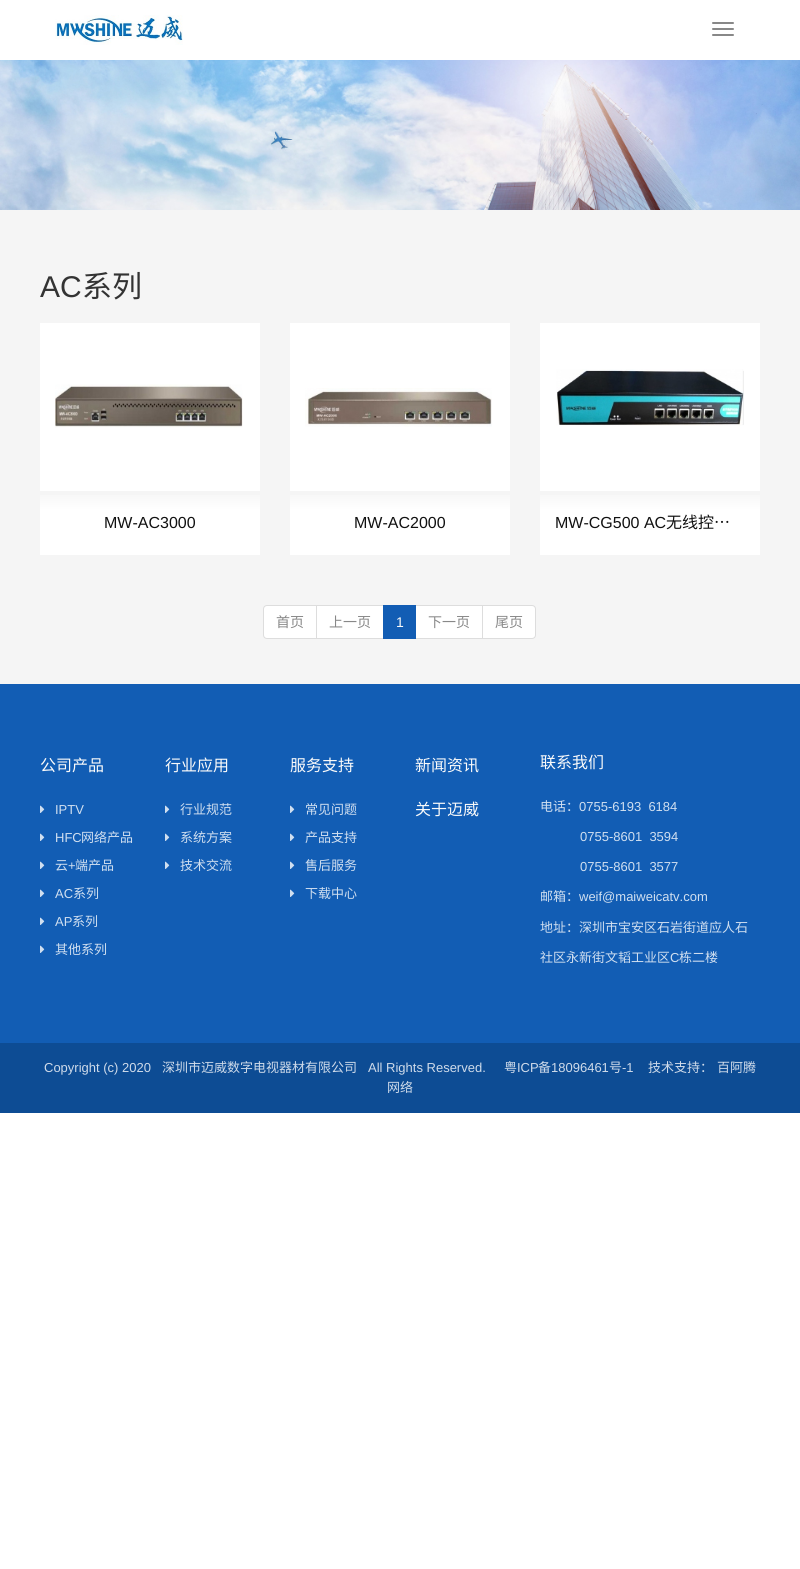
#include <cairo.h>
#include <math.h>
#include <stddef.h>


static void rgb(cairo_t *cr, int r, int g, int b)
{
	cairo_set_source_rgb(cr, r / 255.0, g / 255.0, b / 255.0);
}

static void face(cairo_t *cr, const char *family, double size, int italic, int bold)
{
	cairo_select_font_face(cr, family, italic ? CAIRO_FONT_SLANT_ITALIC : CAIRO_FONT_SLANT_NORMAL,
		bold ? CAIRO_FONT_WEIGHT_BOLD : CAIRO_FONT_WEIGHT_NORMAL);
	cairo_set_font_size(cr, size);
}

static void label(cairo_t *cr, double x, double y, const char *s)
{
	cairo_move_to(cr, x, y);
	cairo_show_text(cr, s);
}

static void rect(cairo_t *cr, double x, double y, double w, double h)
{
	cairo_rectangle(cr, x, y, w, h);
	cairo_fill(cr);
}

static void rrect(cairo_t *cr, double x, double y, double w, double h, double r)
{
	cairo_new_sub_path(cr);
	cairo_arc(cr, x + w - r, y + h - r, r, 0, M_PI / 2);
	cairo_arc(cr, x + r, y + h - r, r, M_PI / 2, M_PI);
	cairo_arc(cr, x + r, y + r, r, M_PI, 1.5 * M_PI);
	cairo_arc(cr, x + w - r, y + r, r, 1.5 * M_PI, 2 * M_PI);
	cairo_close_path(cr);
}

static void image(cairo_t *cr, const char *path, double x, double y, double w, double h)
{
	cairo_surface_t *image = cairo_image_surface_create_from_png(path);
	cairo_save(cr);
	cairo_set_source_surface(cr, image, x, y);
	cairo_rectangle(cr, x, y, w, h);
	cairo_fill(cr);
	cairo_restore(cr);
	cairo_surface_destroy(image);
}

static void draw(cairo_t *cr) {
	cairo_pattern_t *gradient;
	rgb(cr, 255, 255, 255);
	cairo_paint(cr);
	image(cr, "image0.png", 55, 15, 128, 30);
	rgb(cr, 136, 136, 136);
	rrect(cr, 712, 22, 22, 2, 1);
	cairo_fill(cr);
	rrect(cr, 712, 28, 22, 2, 1);
	cairo_fill(cr);
	rrect(cr, 712, 34, 22, 2, 1);
	cairo_fill(cr);
	image(cr, "image1.png", 0, 60, 800, 150);
	rgb(cr, 245, 245, 245);
	rect(cr, 0, 210, 800, 474);
	face(cr, "Liberation Sans", 30, 0, 0);
	rgb(cr, 51, 51, 51);
	label(cr, 40, 297, "AC");
	face(cr, "Noto Sans CJK SC", 30, 0, 0);
	label(cr, 82, 297, "系列");
	rgb(cr, 255, 255, 255);
	rect(cr, 40, 323, 220, 168);
	image(cr, "image2.png", 55, 384, 188, 44);
	gradient = cairo_pattern_create_linear(150, 491, 150, 555);
	cairo_pattern_add_color_stop_rgba(gradient, 0, 0.961, 0.961, 0.961, 1);
	cairo_pattern_add_color_stop_rgba(gradient, 0.1, 0.976, 0.976, 0.976, 1);
	cairo_pattern_add_color_stop_rgba(gradient, 0.29, 1, 1, 1, 1);
	cairo_set_source(cr, gradient);
	cairo_pattern_destroy(gradient);
	rect(cr, 40, 495, 220, 60);
	face(cr, "Liberation Sans", 16, 0, 0);
	rgb(cr, 17, 17, 17);
	label(cr, 104, 528, "MW-AC3000");
	rgb(cr, 255, 255, 255);
	rect(cr, 290, 323, 220, 168);
	image(cr, "image3.png", 305, 388, 187, 39);
	gradient = cairo_pattern_create_linear(400, 491, 400, 555);
	cairo_pattern_add_color_stop_rgba(gradient, 0, 0.961, 0.961, 0.961, 1);
	cairo_pattern_add_color_stop_rgba(gradient, 0.1, 0.976, 0.976, 0.976, 1);
	cairo_pattern_add_color_stop_rgba(gradient, 0.29, 1, 1, 1, 1);
	cairo_set_source(cr, gradient);
	cairo_pattern_destroy(gradient);
	rect(cr, 290, 495, 220, 60);
	rgb(cr, 17, 17, 17);
	label(cr, 354, 528, "MW-AC2000");
	rgb(cr, 255, 255, 255);
	rect(cr, 540, 323, 220, 168);
	image(cr, "image4.png", 556, 369, 188, 57);
	gradient = cairo_pattern_create_linear(650, 491, 650, 555);
	cairo_pattern_add_color_stop_rgba(gradient, 0, 0.961, 0.961, 0.961, 1);
	cairo_pattern_add_color_stop_rgba(gradient, 0.1, 0.976, 0.976, 0.976, 1);
	cairo_pattern_add_color_stop_rgba(gradient, 0.29, 1, 1, 1, 1);
	cairo_set_source(cr, gradient);
	cairo_pattern_destroy(gradient);
	rect(cr, 540, 495, 220, 60);
	rgb(cr, 17, 17, 17);
	label(cr, 555, 528, "MW-CG500 AC");
	face(cr, "Noto Sans CJK SC", 16, 0, 0);
	label(cr, 666, 528, "无线控…");
	rgb(cr, 255, 255, 255);
	cairo_new_path(cr);
	cairo_move_to(cr, 267, 605.5);
	cairo_line_to(cr, 316.5, 605.5);
	cairo_line_to(cr, 316.5, 638.5);
	cairo_line_to(cr, 267, 638.5);
	cairo_curve_to(cr, 265, 638.5, 263.5, 637, 263.5, 635);
	cairo_line_to(cr, 263.5, 609);
	cairo_curve_to(cr, 263.5, 607, 265, 605.5, 267, 605.5);
	cairo_close_path(cr);
	cairo_fill_preserve(cr);
	rgb(cr, 221, 221, 221);
	cairo_set_line_width(cr, 1);
	cairo_stroke(cr);
	face(cr, "Noto Sans CJK SC", 14, 0, 0);
	rgb(cr, 136, 136, 136);
	label(cr, 276, 627, "首页");
	rgb(cr, 255, 255, 255);
	cairo_rectangle(cr, 316.5, 605.5, 67, 33);
	cairo_fill_preserve(cr);
	rgb(cr, 221, 221, 221);
	cairo_stroke(cr);
	rgb(cr, 136, 136, 136);
	label(cr, 329, 627, "上一页");
	rgb(cr, 255, 255, 255);
	cairo_rectangle(cr, 415.5, 605.5, 67, 33);
	cairo_fill_preserve(cr);
	rgb(cr, 221, 221, 221);
	cairo_stroke(cr);
	rgb(cr, 18, 93, 180);
	rect(cr, 383, 605, 33, 34);
	face(cr, "Liberation Sans", 14, 0, 0);
	rgb(cr, 250, 250, 250);
	label(cr, 396, 627, "1");
	face(cr, "Noto Sans CJK SC", 14, 0, 0);
	rgb(cr, 136, 136, 136);
	label(cr, 428, 627, "下一页");
	rgb(cr, 255, 255, 255);
	cairo_new_path(cr);
	cairo_move_to(cr, 482.5, 605.5);
	cairo_line_to(cr, 532, 605.5);
	cairo_curve_to(cr, 534, 605.5, 535.5, 607, 535.5, 609);
	cairo_line_to(cr, 535.5, 635);
	cairo_curve_to(cr, 535.5, 637, 534, 638.5, 532, 638.5);
	cairo_line_to(cr, 482.5, 638.5);
	cairo_close_path(cr);
	cairo_fill_preserve(cr);
	rgb(cr, 221, 221, 221);
	cairo_stroke(cr);
	rgb(cr, 136, 136, 136);
	label(cr, 495, 627, "尾页");
	rgb(cr, 18, 93, 180);
	rect(cr, 0, 684, 800, 359);
	face(cr, "Noto Sans CJK SC", 16, 0, 0);
	rgb(cr, 250, 250, 250);
	label(cr, 40, 771, "公司产品");
	image(cr, "image5.png", 40, 805, 5, 8);
	face(cr, "Liberation Sans", 13, 0, 0);
	rgb(cr, 208, 223, 240);
	label(cr, 55, 814, "IPTV");
	image(cr, "image5.png", 40, 833, 5, 8);
	label(cr, 55, 842, "HFC");
	face(cr, "Noto Sans CJK SC", 13, 0, 0);
	label(cr, 81, 842, "网络产品");
	image(cr, "image5.png", 40, 861, 5, 8);
	label(cr, 55, 870, "云");
	face(cr, "Liberation Sans", 13, 0, 0);
	label(cr, 68, 870, "+");
	face(cr, "Noto Sans CJK SC", 13, 0, 0);
	label(cr, 75, 870, "端产品");
	image(cr, "image5.png", 40, 889, 5, 8);
	face(cr, "Liberation Sans", 13, 0, 0);
	label(cr, 55, 898, "AC");
	face(cr, "Noto Sans CJK SC", 13, 0, 0);
	label(cr, 73, 898, "系列");
	image(cr, "image5.png", 40, 917, 5, 8);
	face(cr, "Liberation Sans", 13, 0, 0);
	label(cr, 55, 926, "AP");
	face(cr, "Noto Sans CJK SC", 13, 0, 0);
	label(cr, 72, 926, "系列");
	image(cr, "image5.png", 40, 945, 5, 8);
	label(cr, 55, 954, "其他系列");
	face(cr, "Noto Sans CJK SC", 16, 0, 0);
	rgb(cr, 250, 250, 250);
	label(cr, 165, 771, "行业应用");
	image(cr, "image5.png", 165, 805, 5, 8);
	face(cr, "Noto Sans CJK SC", 13, 0, 0);
	rgb(cr, 208, 223, 240);
	label(cr, 180, 814, "行业规范");
	image(cr, "image5.png", 165, 833, 5, 8);
	label(cr, 180, 842, "系统方案");
	image(cr, "image5.png", 165, 861, 5, 8);
	label(cr, 180, 870, "技术交流");
	face(cr, "Noto Sans CJK SC", 16, 0, 0);
	rgb(cr, 250, 250, 250);
	label(cr, 290, 771, "服务支持");
	image(cr, "image5.png", 290, 805, 5, 8);
	face(cr, "Noto Sans CJK SC", 13, 0, 0);
	rgb(cr, 208, 223, 240);
	label(cr, 305, 814, "常见问题");
	image(cr, "image5.png", 290, 833, 5, 8);
	label(cr, 305, 842, "产品支持");
	image(cr, "image5.png", 290, 861, 5, 8);
	label(cr, 305, 870, "售后服务");
	image(cr, "image5.png", 290, 889, 5, 8);
	label(cr, 305, 898, "下载中心");
	face(cr, "Noto Sans CJK SC", 16, 0, 0);
	rgb(cr, 250, 250, 250);
	label(cr, 415, 771, "新闻资讯");
	label(cr, 415, 815, "关于迈威");
	label(cr, 540, 768, "联系我们");
	face(cr, "Noto Sans CJK SC", 13, 0, 0);
	rgb(cr, 208, 223, 240);
	label(cr, 540, 811, "电话：");
	face(cr, "Liberation Sans", 13, 0, 0);
	label(cr, 579, 811, "0755-6193  6184");
	label(cr, 580, 841, "0755-8601  3594");
	label(cr, 580, 871, "0755-8601  3577");
	face(cr, "Noto Sans CJK SC", 13, 0, 0);
	label(cr, 540, 901, "邮箱：");
	face(cr, "Liberation Sans", 13, 0, 0);
	label(cr, 579, 901, "weif@maiweicatv.com");
	face(cr, "Noto Sans CJK SC", 13, 0, 0);
	label(cr, 540, 932, "地址：深圳市宝安区石岩街道应人石");
	label(cr, 540, 962, "社区永新街文韬工业区");
	face(cr, "Liberation Sans", 13, 0, 0);
	label(cr, 670, 962, "C");
	face(cr, "Noto Sans CJK SC", 13, 0, 0);
	label(cr, 679, 962, "栋二楼");
	rgb(cr, 13, 76, 148);
	rect(cr, 0, 1043, 800, 70);
	face(cr, "Liberation Sans", 13, 0, 0);
	rgb(cr, 207, 219, 234);
	label(cr, 44, 1072, "Copyright (c) 2020");
	face(cr, "Noto Sans CJK SC", 13, 0, 0);
	label(cr, 162, 1072, "深圳市迈威数字电视器材有限公司");
	face(cr, "Liberation Sans", 13, 0, 0);
	label(cr, 368, 1072, "All Rights Reserved.");
	face(cr, "Noto Sans CJK SC", 13, 0, 0);
	label(cr, 504, 1072, "粤");
	face(cr, "Liberation Sans", 13, 0, 0);
	label(cr, 517, 1072, "ICP");
	face(cr, "Noto Sans CJK SC", 13, 0, 0);
	label(cr, 538, 1072, "备");
	face(cr, "Liberation Sans", 13, 0, 0);
	label(cr, 551, 1072, "18096461");
	face(cr, "Noto Sans CJK SC", 13, 0, 0);
	label(cr, 609, 1072, "号");
	face(cr, "Liberation Sans", 13, 0, 0);
	label(cr, 622, 1072, "-1");
	face(cr, "Noto Sans CJK SC", 13, 0, 0);
	label(cr, 648, 1072, "技术支持：");
	label(cr, 717, 1072, "百阿腾");
	label(cr, 387, 1092, "网络");
}

int main(void) {
	cairo_surface_t *surface = cairo_image_surface_create(CAIRO_FORMAT_RGB24, 800, 1569);
	cairo_t *cr = cairo_create(surface);
	cairo_font_options_t *options = cairo_font_options_create();
	cairo_font_options_set_hint_metrics(options, CAIRO_HINT_METRICS_OFF);
	cairo_font_options_set_hint_style(options, CAIRO_HINT_STYLE_NONE);
	cairo_set_font_options(cr, options);
	cairo_set_miter_limit(cr, 4);
	draw(cr);
	cairo_surface_write_to_png(surface, "render.png");
	cairo_font_options_destroy(options);
	cairo_destroy(cr);
	cairo_surface_destroy(surface);
	return 0;
}
